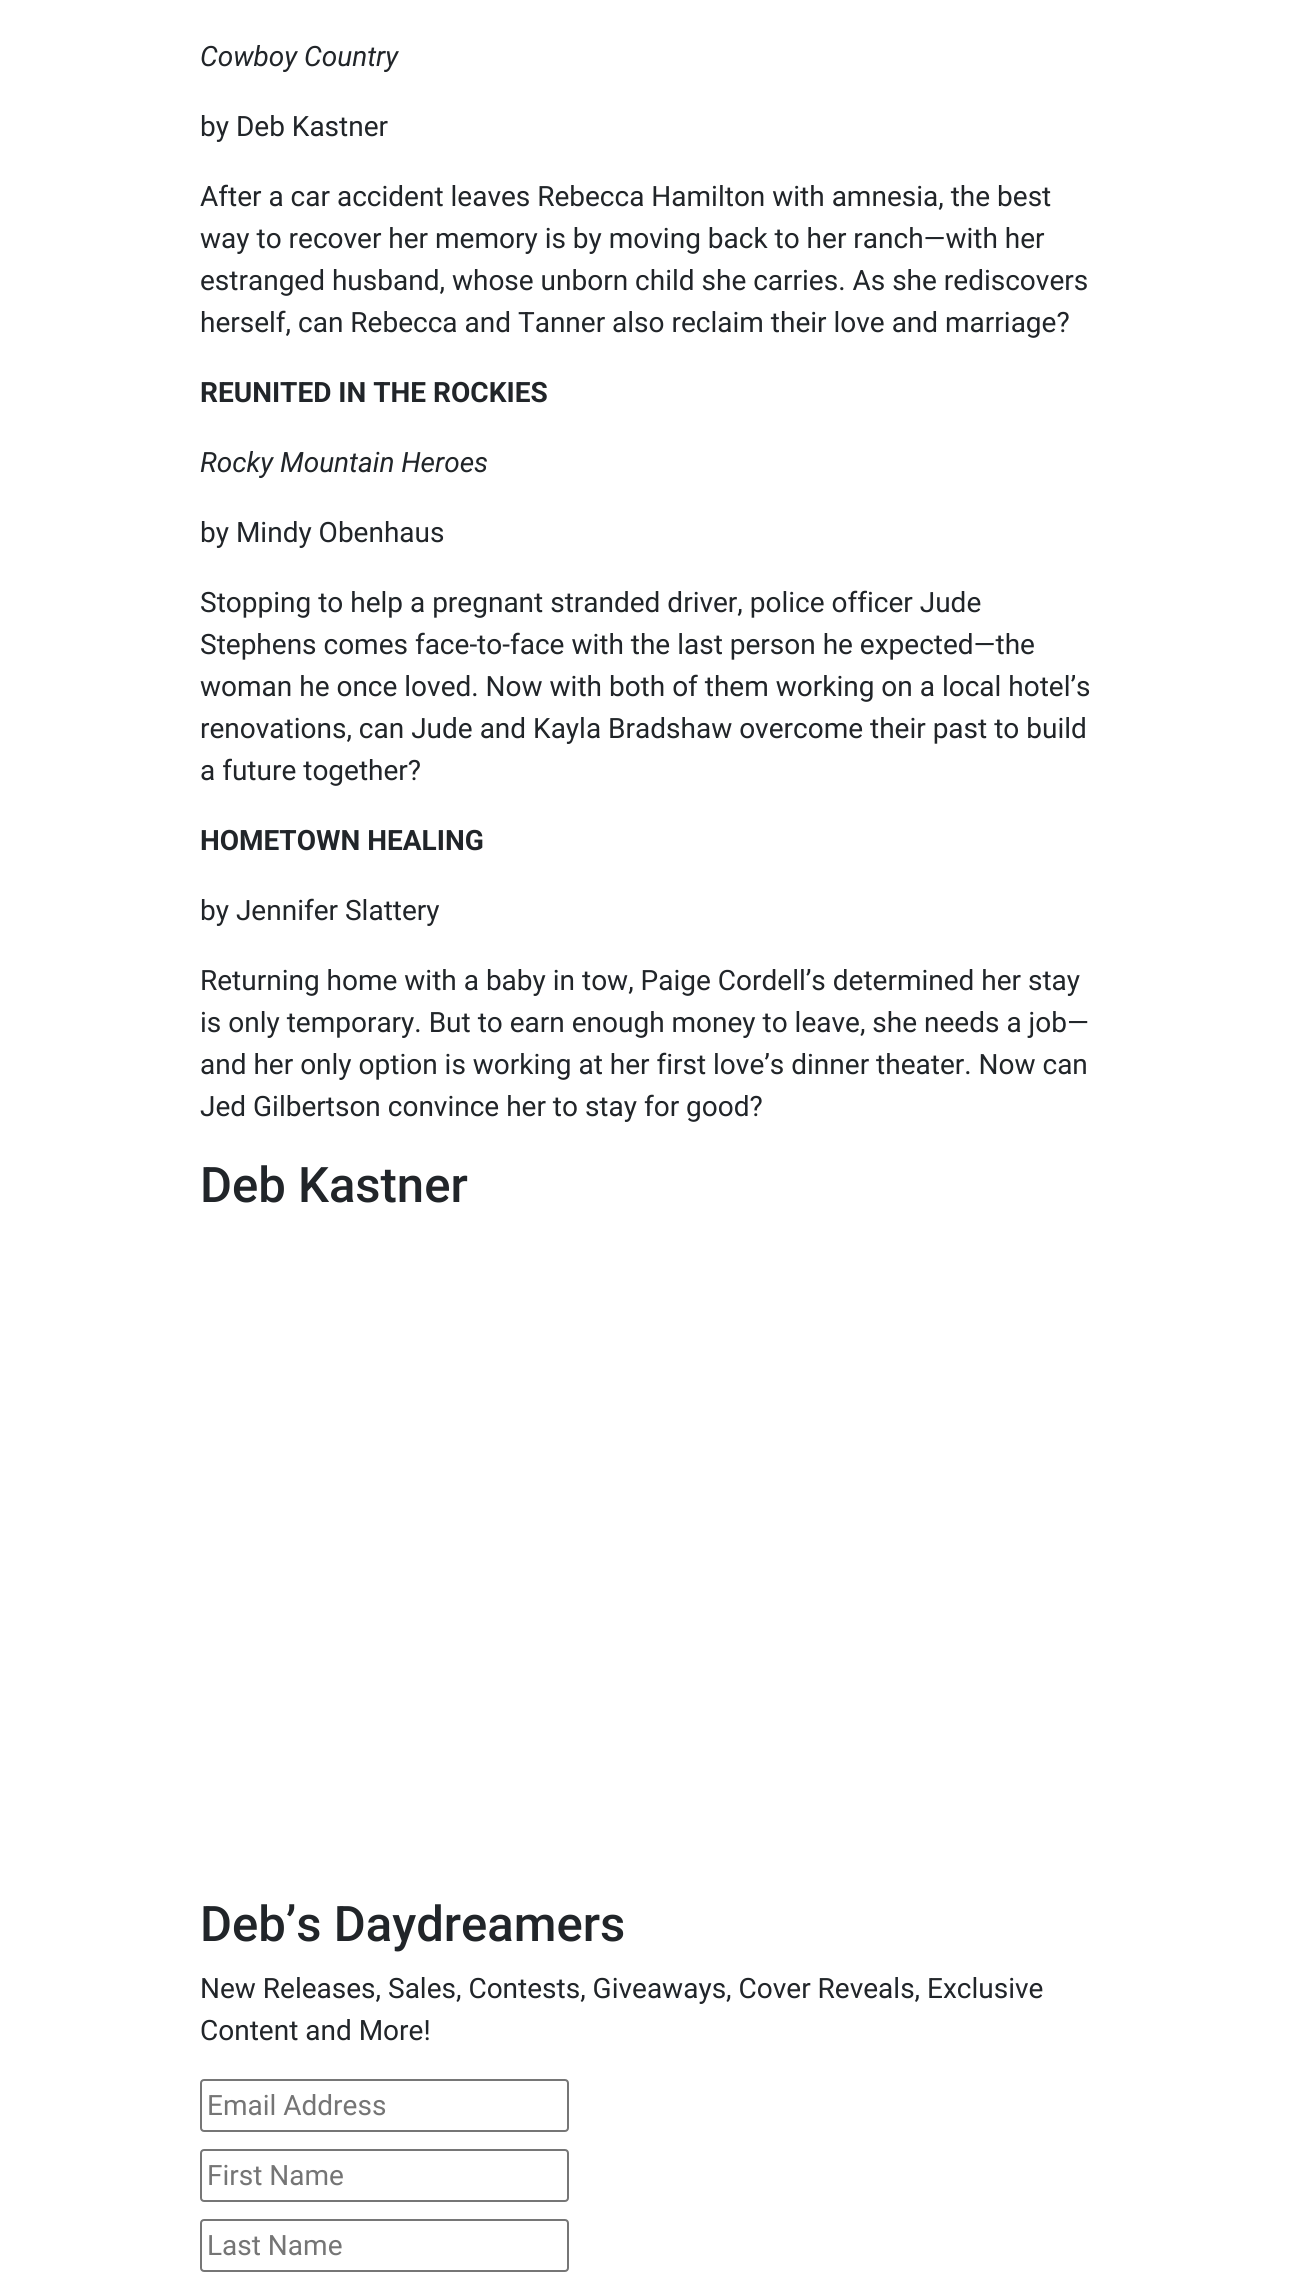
#include <cairo.h>
#include <math.h>
#include <stddef.h>


static void rgb(cairo_t *cr, int r, int g, int b)
{
	cairo_set_source_rgb(cr, r / 255.0, g / 255.0, b / 255.0);
}

static void face(cairo_t *cr, const char *family, double size, int italic, int bold)
{
	cairo_select_font_face(cr, family, italic ? CAIRO_FONT_SLANT_ITALIC : CAIRO_FONT_SLANT_NORMAL,
		bold ? CAIRO_FONT_WEIGHT_BOLD : CAIRO_FONT_WEIGHT_NORMAL);
	cairo_set_font_size(cr, size);
}

static void label(cairo_t *cr, double x, double y, const char *s)
{
	cairo_move_to(cr, x, y);
	cairo_show_text(cr, s);
}

static void rrect(cairo_t *cr, double x, double y, double w, double h, double r)
{
	cairo_new_sub_path(cr);
	cairo_arc(cr, x + w - r, y + h - r, r, 0, M_PI / 2);
	cairo_arc(cr, x + r, y + h - r, r, M_PI / 2, M_PI);
	cairo_arc(cr, x + r, y + r, r, M_PI, 1.5 * M_PI);
	cairo_arc(cr, x + w - r, y + r, r, 1.5 * M_PI, 2 * M_PI);
	cairo_close_path(cr);
}

static void draw(cairo_t *cr) {
	rgb(cr, 255, 255, 255);
	cairo_paint(cr);
	face(cr, "Roboto", 28, 1, 0);
	rgb(cr, 33, 37, 41);
	label(cr, 200, 66, "Cowboy Country");
	face(cr, "Roboto", 28, 0, 0);
	label(cr, 200, 136, "by Deb Kastner");
	label(cr, 200, 206, "After a car accident leaves Rebecca Hamilton with amnesia, the best");
	label(cr, 200, 248, "way to recover her memory is by moving back to her ranch—with her");
	label(cr, 200, 290, "estranged husband, whose unborn child she carries. As she rediscovers");
	label(cr, 200, 332, "herself, can Rebecca and Tanner also reclaim their love and marriage?");
	face(cr, "Roboto", 28, 0, 1);
	label(cr, 200, 402, "REUNITED IN THE ROCKIES");
	face(cr, "Roboto", 28, 1, 0);
	label(cr, 200, 472, "Rocky Mountain Heroes");
	face(cr, "Roboto", 28, 0, 0);
	label(cr, 200, 542, "by Mindy Obenhaus");
	label(cr, 200, 612, "Stopping to help a pregnant stranded driver, police officer Jude");
	label(cr, 200, 654, "Stephens comes face-to-face with the last person he expected—the");
	label(cr, 200, 696, "woman he once loved. Now with both of them working on a local hotel’s");
	label(cr, 200, 738, "renovations, can Jude and Kayla Bradshaw overcome their past to build");
	label(cr, 200, 780, "a future together?");
	face(cr, "Roboto", 28, 0, 1);
	label(cr, 200, 850, "HOMETOWN HEALING");
	face(cr, "Roboto", 28, 0, 0);
	label(cr, 200, 920, "by Jennifer Slattery");
	label(cr, 200, 990, "Returning home with a baby in tow, Paige Cordell’s determined her stay");
	label(cr, 200, 1032, "is only temporary. But to earn enough money to leave, she needs a job—");
	label(cr, 200, 1074, "and her only option is working at her first love’s dinner theater. Now can");
	label(cr, 200, 1116, "Jed Gilbertson convince her to stay for good?");
	face(cr, "Roboto Medium", 49, 0, 0);
	label(cr, 200, 1202, "Deb Kastner");
	label(cr, 200, 1941, "Deb’s Daydreamers");
	face(cr, "Roboto", 28, 0, 0);
	label(cr, 200, 1998, "New Releases, Sales, Contests, Giveaways, Cover Reveals, Exclusive");
	label(cr, 200, 2040, "Content and More!");
	rrect(cr, 201, 2080, 367, 51, 3);
	rgb(cr, 118, 118, 118);
	cairo_stroke(cr);
	rgb(cr, 117, 117, 117);
	label(cr, 207, 2115, "Email Address");
	rrect(cr, 201, 2150, 367, 51, 3);
	rgb(cr, 118, 118, 118);
	cairo_stroke(cr);
	rgb(cr, 117, 117, 117);
	label(cr, 207, 2185, "First Name");
	rrect(cr, 201, 2220, 367, 51, 3);
	rgb(cr, 118, 118, 118);
	cairo_stroke(cr);
	rgb(cr, 117, 117, 117);
	label(cr, 207, 2255, "Last Name");
}

int main(void) {
	cairo_surface_t *surface = cairo_image_surface_create(CAIRO_FORMAT_RGB24, 1291, 2282);
	cairo_t *cr = cairo_create(surface);
	cairo_font_options_t *options = cairo_font_options_create();
	cairo_font_options_set_hint_metrics(options, CAIRO_HINT_METRICS_OFF);
	cairo_font_options_set_hint_style(options, CAIRO_HINT_STYLE_NONE);
	cairo_set_font_options(cr, options);
	cairo_set_miter_limit(cr, 4);
	draw(cr);
	cairo_surface_write_to_png(surface, "render.png");
	cairo_font_options_destroy(options);
	cairo_destroy(cr);
	cairo_surface_destroy(surface);
	return 0;
}
